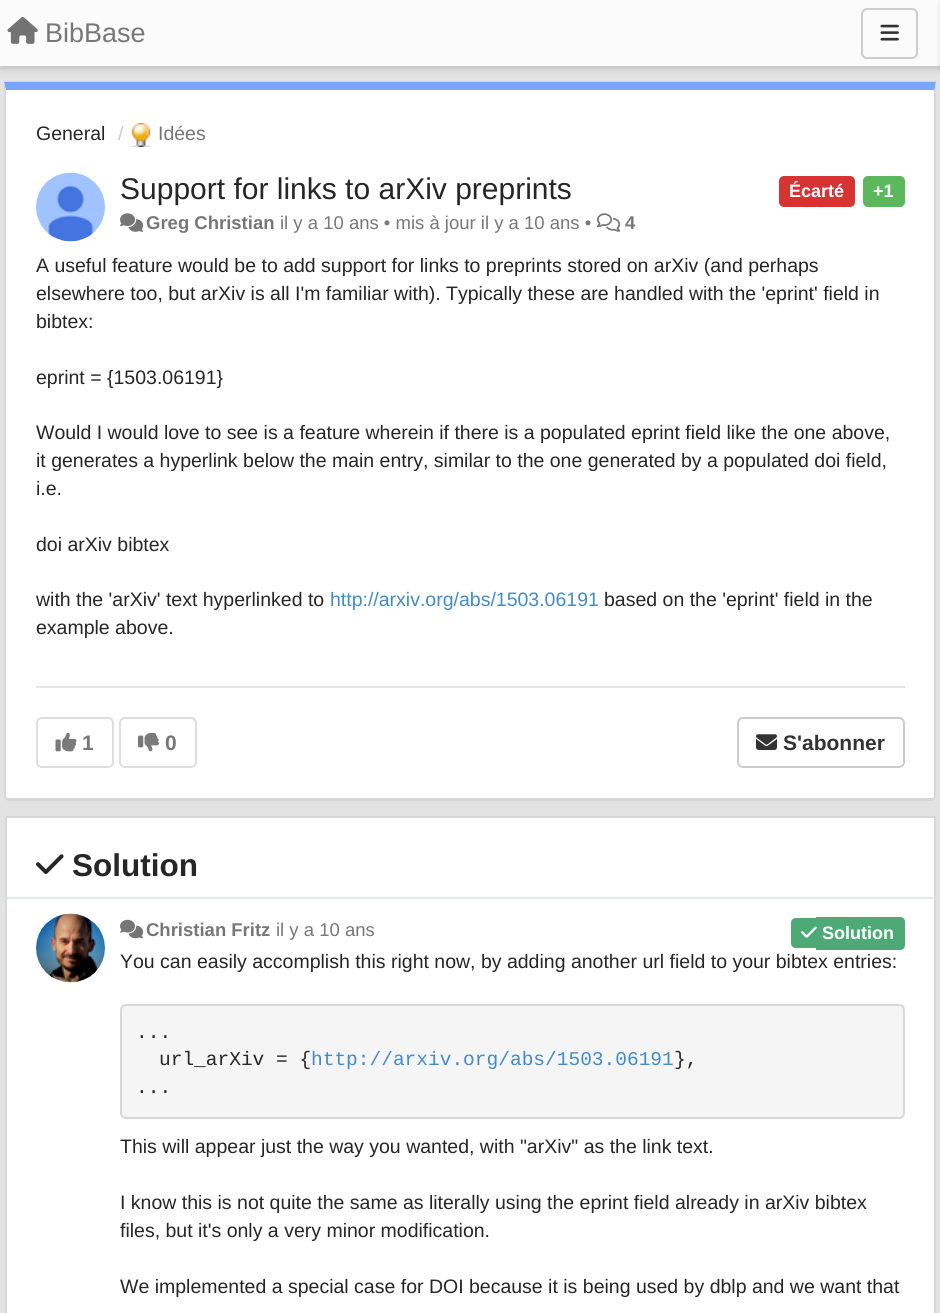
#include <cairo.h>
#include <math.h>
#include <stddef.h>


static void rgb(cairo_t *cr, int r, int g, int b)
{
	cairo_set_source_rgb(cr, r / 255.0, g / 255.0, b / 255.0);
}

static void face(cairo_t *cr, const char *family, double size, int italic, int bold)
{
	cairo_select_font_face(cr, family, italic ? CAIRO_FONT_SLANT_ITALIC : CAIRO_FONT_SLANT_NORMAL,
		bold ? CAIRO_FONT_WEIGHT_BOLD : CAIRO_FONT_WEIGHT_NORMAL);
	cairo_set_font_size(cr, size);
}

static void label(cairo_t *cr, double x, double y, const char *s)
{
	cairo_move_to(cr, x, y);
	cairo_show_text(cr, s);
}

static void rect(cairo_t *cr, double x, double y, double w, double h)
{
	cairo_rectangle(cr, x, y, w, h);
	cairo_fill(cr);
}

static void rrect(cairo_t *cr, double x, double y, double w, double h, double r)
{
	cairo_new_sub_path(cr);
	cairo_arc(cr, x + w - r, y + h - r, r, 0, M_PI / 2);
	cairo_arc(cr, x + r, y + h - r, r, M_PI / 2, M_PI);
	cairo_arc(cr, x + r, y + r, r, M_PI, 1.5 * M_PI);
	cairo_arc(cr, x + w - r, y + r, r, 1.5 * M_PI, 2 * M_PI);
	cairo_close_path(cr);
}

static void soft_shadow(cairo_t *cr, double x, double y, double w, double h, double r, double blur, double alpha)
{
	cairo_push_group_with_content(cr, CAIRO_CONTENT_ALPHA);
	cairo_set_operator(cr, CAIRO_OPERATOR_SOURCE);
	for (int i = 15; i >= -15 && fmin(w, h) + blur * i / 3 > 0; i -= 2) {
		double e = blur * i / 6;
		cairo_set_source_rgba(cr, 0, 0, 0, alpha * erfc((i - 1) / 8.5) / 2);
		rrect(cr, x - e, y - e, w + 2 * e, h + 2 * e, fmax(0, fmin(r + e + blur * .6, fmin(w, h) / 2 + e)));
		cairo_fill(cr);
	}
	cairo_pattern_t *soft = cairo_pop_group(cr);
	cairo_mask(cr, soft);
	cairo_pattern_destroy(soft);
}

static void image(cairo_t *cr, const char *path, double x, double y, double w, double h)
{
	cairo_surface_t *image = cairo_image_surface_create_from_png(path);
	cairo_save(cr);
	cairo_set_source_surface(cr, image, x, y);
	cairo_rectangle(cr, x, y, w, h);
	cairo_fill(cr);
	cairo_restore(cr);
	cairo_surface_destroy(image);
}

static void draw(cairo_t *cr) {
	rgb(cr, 227, 227, 227);
	cairo_paint(cr);
	rgb(cr, 0, 0, 0);
	soft_shadow(cr, 0, 3, 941, 66, 0, 3, 0.15);
	rgb(cr, 251, 251, 251);
	rect(cr, 0, 0, 940, 66);
	image(cr, "image0.png", 7, 16, 31, 28);
	face(cr, "Liberation Sans", 27, 0, 0);
	rgb(cr, 119, 119, 119);
	label(cr, 45, 42, "BibBase");
	rrect(cr, 862, 9, 55, 49, 5);
	rgb(cr, 204, 204, 204);
	cairo_stroke(cr);
	image(cr, "image1.png", 880, 24, 19, 17);
	rgb(cr, 0, 0, 0);
	soft_shadow(cr, 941, 3, 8, 66, 0, 3, 0.15);
	rgb(cr, 216, 216, 216);
	rect(cr, 5, 81, 931, 2);
	rgb(cr, 255, 255, 255);
	cairo_new_path(cr);
	cairo_move_to(cr, 6, 90);
	cairo_line_to(cr, 934, 90);
	cairo_line_to(cr, 934, 796);
	cairo_curve_to(cr, 934, 797, 933, 798, 932, 798);
	cairo_line_to(cr, 9, 798);
	cairo_curve_to(cr, 7, 798, 6, 797, 6, 796);
	cairo_close_path(cr);
	cairo_fill(cr);
	rgb(cr, 118, 167, 250);
	cairo_new_path(cr);
	cairo_move_to(cr, 6, 90);
	cairo_line_to(cr, 934, 90);
	cairo_line_to(cr, 934, 92);
	cairo_line_to(cr, 936, 82);
	cairo_line_to(cr, 4, 82);
	cairo_close_path(cr);
	cairo_fill(cr);
	rgb(cr, 216, 216, 216);
	cairo_new_path(cr);
	cairo_move_to(cr, 936, 82);
	cairo_line_to(cr, 934, 92);
	cairo_line_to(cr, 934, 797);
	cairo_line_to(cr, 935, 799);
	cairo_line_to(cr, 936, 796);
	cairo_close_path(cr);
	cairo_fill(cr);
	cairo_new_path(cr);
	cairo_move_to(cr, 9, 801);
	cairo_line_to(cr, 932, 801);
	cairo_curve_to(cr, 933, 801, 934, 800, 935, 799);
	cairo_line_to(cr, 934, 797);
	cairo_curve_to(cr, 934, 797, 933, 798, 932, 798);
	cairo_line_to(cr, 9, 798);
	cairo_curve_to(cr, 8, 798, 7, 798, 6, 797);
	cairo_line_to(cr, 5, 799);
	cairo_curve_to(cr, 6, 800, 8, 801, 9, 801);
	cairo_close_path(cr);
	cairo_fill(cr);
	cairo_new_path(cr);
	cairo_move_to(cr, 6, 90);
	cairo_line_to(cr, 6, 796);
	cairo_line_to(cr, 6, 797);
	cairo_line_to(cr, 5, 799);
	cairo_line_to(cr, 4, 798);
	cairo_line_to(cr, 4, 82);
	cairo_close_path(cr);
	cairo_fill(cr);
	face(cr, "Liberation Sans", 19.5, 0, 0);
	rgb(cr, 38, 38, 38);
	label(cr, 36, 140, "General");
	rgb(cr, 204, 204, 204);
	label(cr, 118, 140, "/");
	image(cr, "image2.png", 130, 123, 22, 24);
	rgb(cr, 119, 119, 119);
	label(cr, 158, 140, "Idées");
	image(cr, "image3.png", 36, 172, 69, 70);
	face(cr, "Liberation Sans", 30, 0, 0);
	rgb(cr, 38, 38, 38);
	label(cr, 120, 199, "Support for links to arXiv preprints");
	rgb(cr, 214, 51, 51);
	rrect(cr, 779, 176, 76, 31, 5);
	cairo_fill(cr);
	face(cr, "Liberation Sans", 18, 0, 1);
	rgb(cr, 255, 255, 255);
	label(cr, 789, 197, "Écarté");
	rgb(cr, 92, 184, 92);
	rrect(cr, 863, 176, 42, 31, 5);
	cairo_fill(cr);
	rgb(cr, 255, 255, 255);
	label(cr, 873, 197, "+1");
	image(cr, "image4.png", 120, 213, 24, 19);
	face(cr, "Liberation Sans", 18.5, 0, 1);
	rgb(cr, 119, 119, 119);
	label(cr, 146, 229, "Greg Christian");
	face(cr, "Liberation Sans", 18.5, 0, 0);
	label(cr, 280, 229, "il y a 10 ans • mis à jour il y a 10 ans •");
	image(cr, "image5.png", 597, 213, 24, 19);
	face(cr, "Liberation Sans", 18.5, 0, 1);
	label(cr, 625, 229, "4");
	face(cr, "Liberation Sans", 19.5, 0, 0);
	rgb(cr, 38, 38, 38);
	label(cr, 36, 272, "A useful feature would be to add support for links to preprints stored on arXiv (and perhaps");
	label(cr, 36, 300, "elsewhere too, but arXiv is all I'm familiar with). Typically these are handled with the 'eprint' field in");
	label(cr, 36, 328, "bibtex:");
	label(cr, 36, 384, "eprint = {1503.06191}");
	label(cr, 36, 439, "Would I would love to see is a feature wherein if there is a populated eprint field like the one above,");
	label(cr, 36, 467, "it generates a hyperlink below the main entry, similar to the one generated by a populated doi field,");
	label(cr, 36, 495, "i.e.");
	label(cr, 36, 551, "doi arXiv bibtex");
	label(cr, 36, 606, "with the 'arXiv' text hyperlinked to");
	rgb(cr, 66, 139, 202);
	label(cr, 330, 606, "http://arxiv.org/abs/1503.06191");
	rgb(cr, 38, 38, 38);
	label(cr, 604, 606, "based on the 'eprint' field in the");
	label(cr, 36, 634, "example above.");
	rgb(cr, 229, 229, 229);
	rect(cr, 36, 686, 869, 2);
	rrect(cr, 37, 718, 76, 49, 5);
	rgb(cr, 222, 222, 222);
	cairo_stroke(cr);
	image(cr, "image6.png", 55, 733, 22, 19);
	face(cr, "Liberation Sans", 21, 0, 1);
	rgb(cr, 119, 119, 119);
	label(cr, 82, 750, "1");
	rrect(cr, 120, 718, 76, 49, 5);
	rgb(cr, 222, 222, 222);
	cairo_stroke(cr);
	image(cr, "image7.png", 138, 732, 21, 20);
	rgb(cr, 119, 119, 119);
	label(cr, 165, 750, "0");
	rrect(cr, 738, 718, 166, 49, 5);
	rgb(cr, 204, 204, 204);
	cairo_stroke(cr);
	image(cr, "image8.png", 756, 734, 21, 16);
	rgb(cr, 51, 51, 51);
	label(cr, 783, 750, "S'abonner");
	rgb(cr, 255, 255, 255);
	cairo_new_path(cr);
	cairo_move_to(cr, 6, 818);
	cairo_line_to(cr, 934, 818);
	cairo_line_to(cr, 934, 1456);
	cairo_curve_to(cr, 934, 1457, 933, 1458, 932, 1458);
	cairo_line_to(cr, 9, 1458);
	cairo_curve_to(cr, 7, 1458, 6, 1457, 6, 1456);
	cairo_close_path(cr);
	cairo_fill(cr);
	cairo_rectangle(cr, 6, 817, 929, 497);
	rgb(cr, 216, 216, 216);
	cairo_stroke(cr);
	image(cr, "image9.png", 36, 854, 28, 20);
	face(cr, "Liberation Sans", 31.5, 0, 1);
	rgb(cr, 38, 38, 38);
	label(cr, 72, 876, "Solution");
	rgb(cr, 225, 232, 237);
	rect(cr, 6, 897, 929, 2);
	image(cr, "image10.png", 36, 913, 69, 70);
	image(cr, "image11.png", 120, 919, 24, 20);
	face(cr, "Liberation Sans", 18.5, 0, 1);
	rgb(cr, 119, 119, 119);
	label(cr, 146, 936, "Christian Fritz");
	face(cr, "Liberation Sans", 18.5, 0, 0);
	label(cr, 276, 936, "il y a 10 ans");
	rgb(cr, 77, 170, 119);
	cairo_new_path(cr);
	cairo_move_to(cr, 796, 918);
	cairo_line_to(cr, 816, 918);
	cairo_line_to(cr, 816, 948);
	cairo_line_to(cr, 796, 948);
	cairo_curve_to(cr, 793, 948, 791, 946, 791, 943);
	cairo_line_to(cr, 791, 923);
	cairo_curve_to(cr, 791, 920, 793, 918, 796, 918);
	cairo_close_path(cr);
	cairo_fill(cr);
	cairo_new_path(cr);
	cairo_move_to(cr, 816, 917);
	cairo_line_to(cr, 900, 917);
	cairo_curve_to(cr, 903, 917, 905, 919, 905, 922);
	cairo_line_to(cr, 905, 945);
	cairo_curve_to(cr, 905, 948, 903, 950, 900, 950);
	cairo_line_to(cr, 816, 950);
	cairo_close_path(cr);
	cairo_fill(cr);
	image(cr, "image12.png", 801, 926, 16, 12);
	face(cr, "Liberation Sans", 18, 0, 1);
	rgb(cr, 255, 255, 255);
	label(cr, 822, 939, "Solution");
	face(cr, "Liberation Sans", 19.5, 0, 0);
	rgb(cr, 38, 38, 38);
	label(cr, 120, 968, "You can easily accomplish this right now, by adding another url field to your bibtex entries:");
	rgb(cr, 245, 245, 245);
	rrect(cr, 121, 1005, 783, 113, 5);
	cairo_fill_preserve(cr);
	rgb(cr, 216, 216, 216);
	cairo_stroke(cr);
	face(cr, "Liberation Mono", 19.5, 0, 0);
	rgb(cr, 38, 38, 38);
	label(cr, 136, 1038, "...");
	label(cr, 159, 1065, "url_arXiv = {");
	rgb(cr, 66, 139, 202);
	label(cr, 311, 1065, "http://arxiv.org/abs/1503.06191");
	rgb(cr, 38, 38, 38);
	label(cr, 674, 1065, "},");
	label(cr, 136, 1093, "...");
	face(cr, "Liberation Sans", 19.5, 0, 0);
	label(cr, 120, 1153, "This will appear just the way you wanted, with \"arXiv\" as the link text.");
	label(cr, 120, 1209, "I know this is not quite the same as literally using the eprint field already in arXiv bibtex");
	label(cr, 120, 1237, "files, but it's only a very minor modification.");
	label(cr, 120, 1293, "We implemented a special case for DOI because it is being used by dblp and we want that");
}

int main(void) {
	cairo_surface_t *surface = cairo_image_surface_create(CAIRO_FORMAT_RGB24, 940, 1313);
	cairo_t *cr = cairo_create(surface);
	cairo_font_options_t *options = cairo_font_options_create();
	cairo_font_options_set_hint_metrics(options, CAIRO_HINT_METRICS_OFF);
	cairo_font_options_set_hint_style(options, CAIRO_HINT_STYLE_NONE);
	cairo_set_font_options(cr, options);
	cairo_set_miter_limit(cr, 4);
	draw(cr);
	cairo_surface_write_to_png(surface, "render.png");
	cairo_font_options_destroy(options);
	cairo_destroy(cr);
	cairo_surface_destroy(surface);
	return 0;
}
